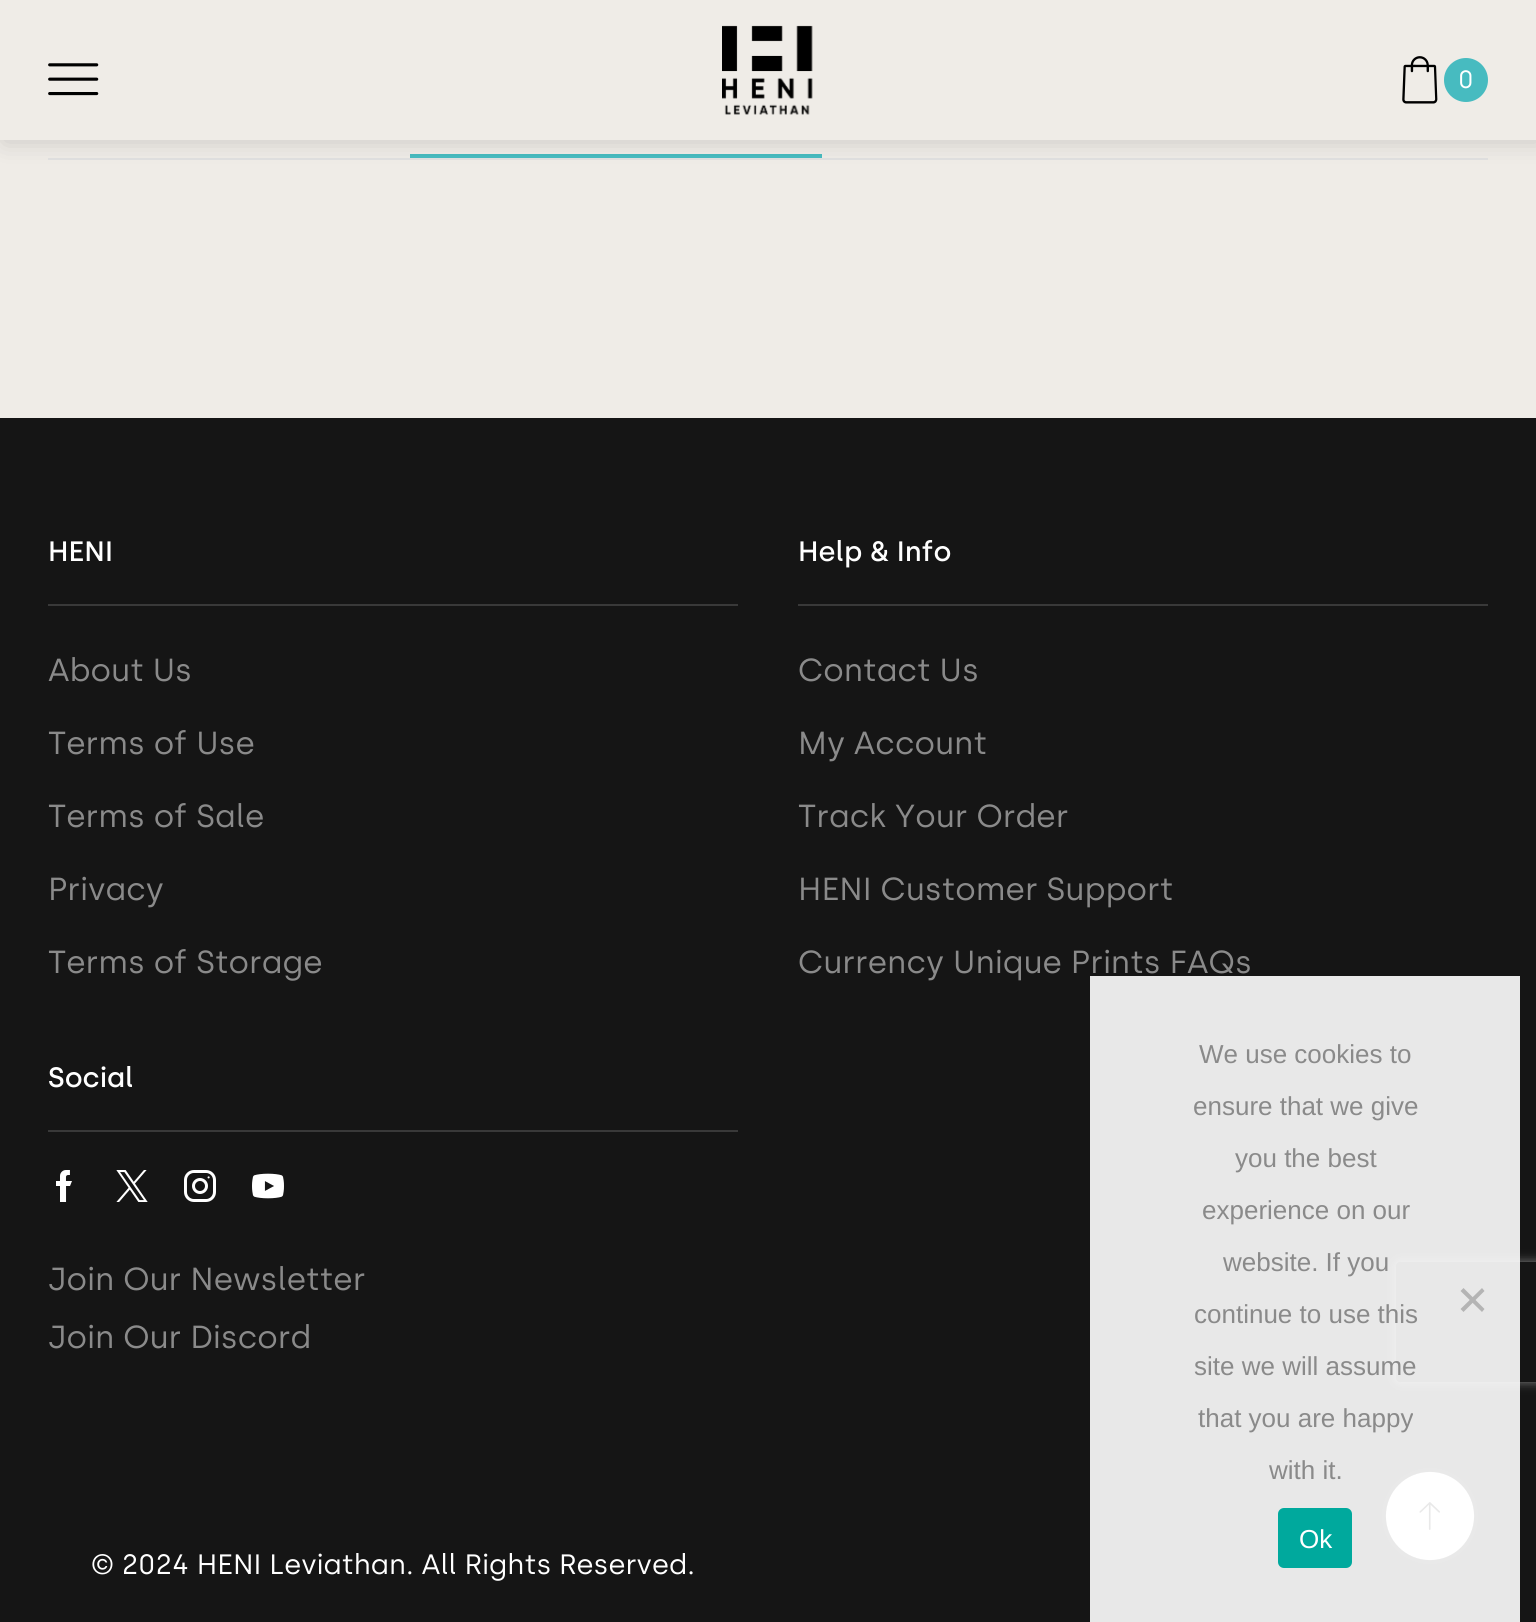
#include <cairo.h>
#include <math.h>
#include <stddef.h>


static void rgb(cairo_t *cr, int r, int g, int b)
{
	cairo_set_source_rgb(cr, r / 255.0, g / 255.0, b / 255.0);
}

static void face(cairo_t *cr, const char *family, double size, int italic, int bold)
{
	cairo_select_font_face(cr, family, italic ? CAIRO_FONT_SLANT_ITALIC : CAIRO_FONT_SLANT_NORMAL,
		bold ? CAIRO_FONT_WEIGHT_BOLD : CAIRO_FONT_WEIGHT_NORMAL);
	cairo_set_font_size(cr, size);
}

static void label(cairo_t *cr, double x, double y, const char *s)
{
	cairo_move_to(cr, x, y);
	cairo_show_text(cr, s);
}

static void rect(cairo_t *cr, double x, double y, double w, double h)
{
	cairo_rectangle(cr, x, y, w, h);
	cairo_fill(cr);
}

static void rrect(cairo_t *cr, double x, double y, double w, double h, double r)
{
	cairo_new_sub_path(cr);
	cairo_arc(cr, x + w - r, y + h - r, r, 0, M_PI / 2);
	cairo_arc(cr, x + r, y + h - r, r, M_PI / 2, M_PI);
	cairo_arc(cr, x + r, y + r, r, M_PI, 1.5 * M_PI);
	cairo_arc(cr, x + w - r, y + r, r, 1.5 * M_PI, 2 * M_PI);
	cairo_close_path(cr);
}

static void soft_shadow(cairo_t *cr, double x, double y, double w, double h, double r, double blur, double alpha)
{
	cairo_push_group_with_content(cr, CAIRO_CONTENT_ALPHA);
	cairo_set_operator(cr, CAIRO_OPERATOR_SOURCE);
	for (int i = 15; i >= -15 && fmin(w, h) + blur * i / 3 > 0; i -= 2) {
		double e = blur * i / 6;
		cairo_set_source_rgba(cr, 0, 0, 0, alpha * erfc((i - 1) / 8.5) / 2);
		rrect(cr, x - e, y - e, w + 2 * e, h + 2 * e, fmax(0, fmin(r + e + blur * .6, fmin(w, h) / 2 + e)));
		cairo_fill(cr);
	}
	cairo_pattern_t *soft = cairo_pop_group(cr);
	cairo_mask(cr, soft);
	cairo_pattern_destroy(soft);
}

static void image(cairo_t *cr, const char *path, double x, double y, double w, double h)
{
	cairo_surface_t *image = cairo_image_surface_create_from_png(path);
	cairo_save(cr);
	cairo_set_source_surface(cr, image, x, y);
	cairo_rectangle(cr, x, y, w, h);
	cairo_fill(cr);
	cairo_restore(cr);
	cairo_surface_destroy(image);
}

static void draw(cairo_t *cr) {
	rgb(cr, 239, 236, 231);
	cairo_paint(cr);
	rgb(cr, 225, 225, 225);
	rect(cr, 48, 158, 1440, 2);
	rgb(cr, 71, 187, 192);
	rect(cr, 410, 154, 412, 4);
	rgb(cr, 0, 0, 0);
	soft_shadow(cr, 4, 0, 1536, 142, 0, 12, 0.15);
	rgb(cr, 239, 236, 231);
	rect(cr, 0, 0, 1536, 140);
	image(cr, "image0.png", 48, 63, 51, 33);
	image(cr, "image1.png", 722, 25, 91, 90);
	image(cr, "image2.png", 1402, 56, 36, 48);
	rgb(cr, 71, 187, 192);
	cairo_arc(cr, 1466, 80, 22, 0, 2 * M_PI);
	cairo_fill(cr);
	face(cr, "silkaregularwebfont", 25, 0, 0);
	rgb(cr, 255, 255, 255);
	label(cr, 1458, 88, "0");
	rgb(cr, 21, 21, 21);
	rect(cr, 0, 418, 1536, 1204);
	rgb(cr, 57, 57, 57);
	rect(cr, 48, 604, 690, 2);
	face(cr, "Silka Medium", 28, 0, 0);
	rgb(cr, 255, 255, 255);
	label(cr, 48, 561, "HENI");
	face(cr, "silkaregularwebfont", 31.9, 0, 0);
	rgb(cr, 138, 138, 138);
	label(cr, 48, 681, "About Us");
	label(cr, 48, 754, "Terms of Use");
	label(cr, 48, 827, "Terms of Sale");
	label(cr, 48, 900, "Privacy");
	label(cr, 48, 973, "Terms of Storage");
	rgb(cr, 57, 57, 57);
	rect(cr, 798, 604, 690, 2);
	face(cr, "Silka Medium", 28, 0, 0);
	rgb(cr, 255, 255, 255);
	label(cr, 798, 561, "Help & Info");
	face(cr, "silkaregularwebfont", 31.9, 0, 0);
	rgb(cr, 138, 138, 138);
	label(cr, 798, 681, "Contact Us");
	label(cr, 798, 754, "My Account");
	label(cr, 798, 827, "Track Your Order");
	label(cr, 798, 900, "HENI Customer Support");
	label(cr, 798, 973, "Currency Unique Prints FAQs");
	rgb(cr, 57, 57, 57);
	rect(cr, 48, 1130, 690, 2);
	face(cr, "Silka Medium", 28, 0, 0);
	rgb(cr, 255, 255, 255);
	label(cr, 48, 1087, "Social");
	image(cr, "image3.png", 56, 1170, 16, 32);
	image(cr, "image4.png", 116, 1170, 32, 32);
	image(cr, "image5.png", 184, 1170, 32, 32);
	image(cr, "image6.png", 252, 1173, 32, 26);
	face(cr, "silkaregularwebfont", 31.9, 0, 0);
	rgb(cr, 138, 138, 138);
	label(cr, 48, 1290, "Join Our Newsletter");
	label(cr, 48, 1348, "Join Our Discord");
	face(cr, "silkaregularwebfont", 28, 0, 0);
	rgb(cr, 255, 255, 255);
	label(cr, 91, 1574, "© 2024 HENI Leviathan. All Rights Reserved.");
	cairo_new_path(cr);
	cairo_arc(cr, 1430, 1516, 45, 0, 2 * M_PI);
	cairo_fill_preserve(cr);
	rgb(cr, 225, 225, 225);
	cairo_stroke(cr);
	cairo_new_path(cr);
	cairo_move_to(cr, 1430, 1470);
	cairo_curve_to(cr, 1455.5, 1470, 1476, 1490.5, 1476, 1516);
	cairo_curve_to(cr, 1476, 1541.5, 1455.5, 1562, 1430, 1562);
	cairo_curve_to(cr, 1404.5, 1562, 1384, 1541.5, 1384, 1516);
	cairo_curve_to(cr, 1384, 1490.5, 1404.5, 1470, 1430, 1470);
	rgb(cr, 34, 34, 34);
	cairo_set_line_width(cr, 3.8);
	cairo_stroke(cr);
	image(cr, "image7.png", 1419, 1502, 22, 28);
	cairo_save(cr);
	cairo_set_fill_rule(cr, CAIRO_FILL_RULE_EVEN_ODD);
	cairo_new_path(cr);
	cairo_move_to(cr, 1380, 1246);
	cairo_line_to(cr, 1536, 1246);
	cairo_line_to(cr, 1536, 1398);
	cairo_line_to(cr, 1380, 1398);
	cairo_close_path(cr);
	cairo_move_to(cr, 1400, 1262);
	cairo_line_to(cr, 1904, 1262);
	cairo_curve_to(cr, 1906, 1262, 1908, 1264, 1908, 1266);
	cairo_line_to(cr, 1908, 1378);
	cairo_curve_to(cr, 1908, 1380, 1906, 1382, 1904, 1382);
	cairo_line_to(cr, 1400, 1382);
	cairo_curve_to(cr, 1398, 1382, 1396, 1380, 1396, 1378);
	cairo_line_to(cr, 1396, 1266);
	cairo_curve_to(cr, 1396, 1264, 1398, 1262, 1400, 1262);
	cairo_close_path(cr);
	cairo_clip(cr);
	rgb(cr, 128, 128, 128);
	soft_shadow(cr, 1396, 1262, 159, 120, 4, 5, 1);
	cairo_restore(cr);
	cairo_set_source_rgba(cr, 1, 1, 1, 0.9);
	rect(cr, 1090, 976, 430, 646);
	face(cr, "Liberation Sans", 26, 0, 0);
	rgb(cr, 138, 138, 138);
	label(cr, 1199, 1063, "We use cookies to");
	label(cr, 1193, 1115, "ensure that we give");
	label(cr, 1235, 1167, "you the best");
	label(cr, 1202, 1219, "experience on our");
	label(cr, 1223, 1271, "website. If you");
	label(cr, 1194, 1323, "continue to use this");
	label(cr, 1194, 1375, "site we will assume");
	label(cr, 1198, 1427, "that you are happy");
	label(cr, 1269, 1479, "with it.");
	rgb(cr, 180, 180, 180);
	cairo_new_path(cr);
	cairo_move_to(cr, 1482, 1288);
	cairo_line_to(cr, 1484.5, 1291);
	cairo_line_to(cr, 1463.5, 1312);
	cairo_line_to(cr, 1460.5, 1309);
	cairo_close_path(cr);
	cairo_fill(cr);
	cairo_new_path(cr);
	cairo_move_to(cr, 1460.5, 1291);
	cairo_line_to(cr, 1463.5, 1288);
	cairo_line_to(cr, 1484.5, 1309);
	cairo_line_to(cr, 1482, 1312);
	cairo_close_path(cr);
	cairo_fill(cr);
	rgb(cr, 0, 169, 157);
	rrect(cr, 1278, 1508, 74, 60, 6);
	cairo_fill(cr);
	rgb(cr, 255, 255, 255);
	label(cr, 1299, 1548, "Ok");
}

int main(void) {
	cairo_surface_t *surface = cairo_image_surface_create(CAIRO_FORMAT_RGB24, 1536, 1622);
	cairo_t *cr = cairo_create(surface);
	cairo_font_options_t *options = cairo_font_options_create();
	cairo_font_options_set_hint_metrics(options, CAIRO_HINT_METRICS_OFF);
	cairo_font_options_set_hint_style(options, CAIRO_HINT_STYLE_NONE);
	cairo_set_font_options(cr, options);
	cairo_set_miter_limit(cr, 4);
	draw(cr);
	cairo_surface_write_to_png(surface, "render.png");
	cairo_font_options_destroy(options);
	cairo_destroy(cr);
	cairo_surface_destroy(surface);
	return 0;
}
